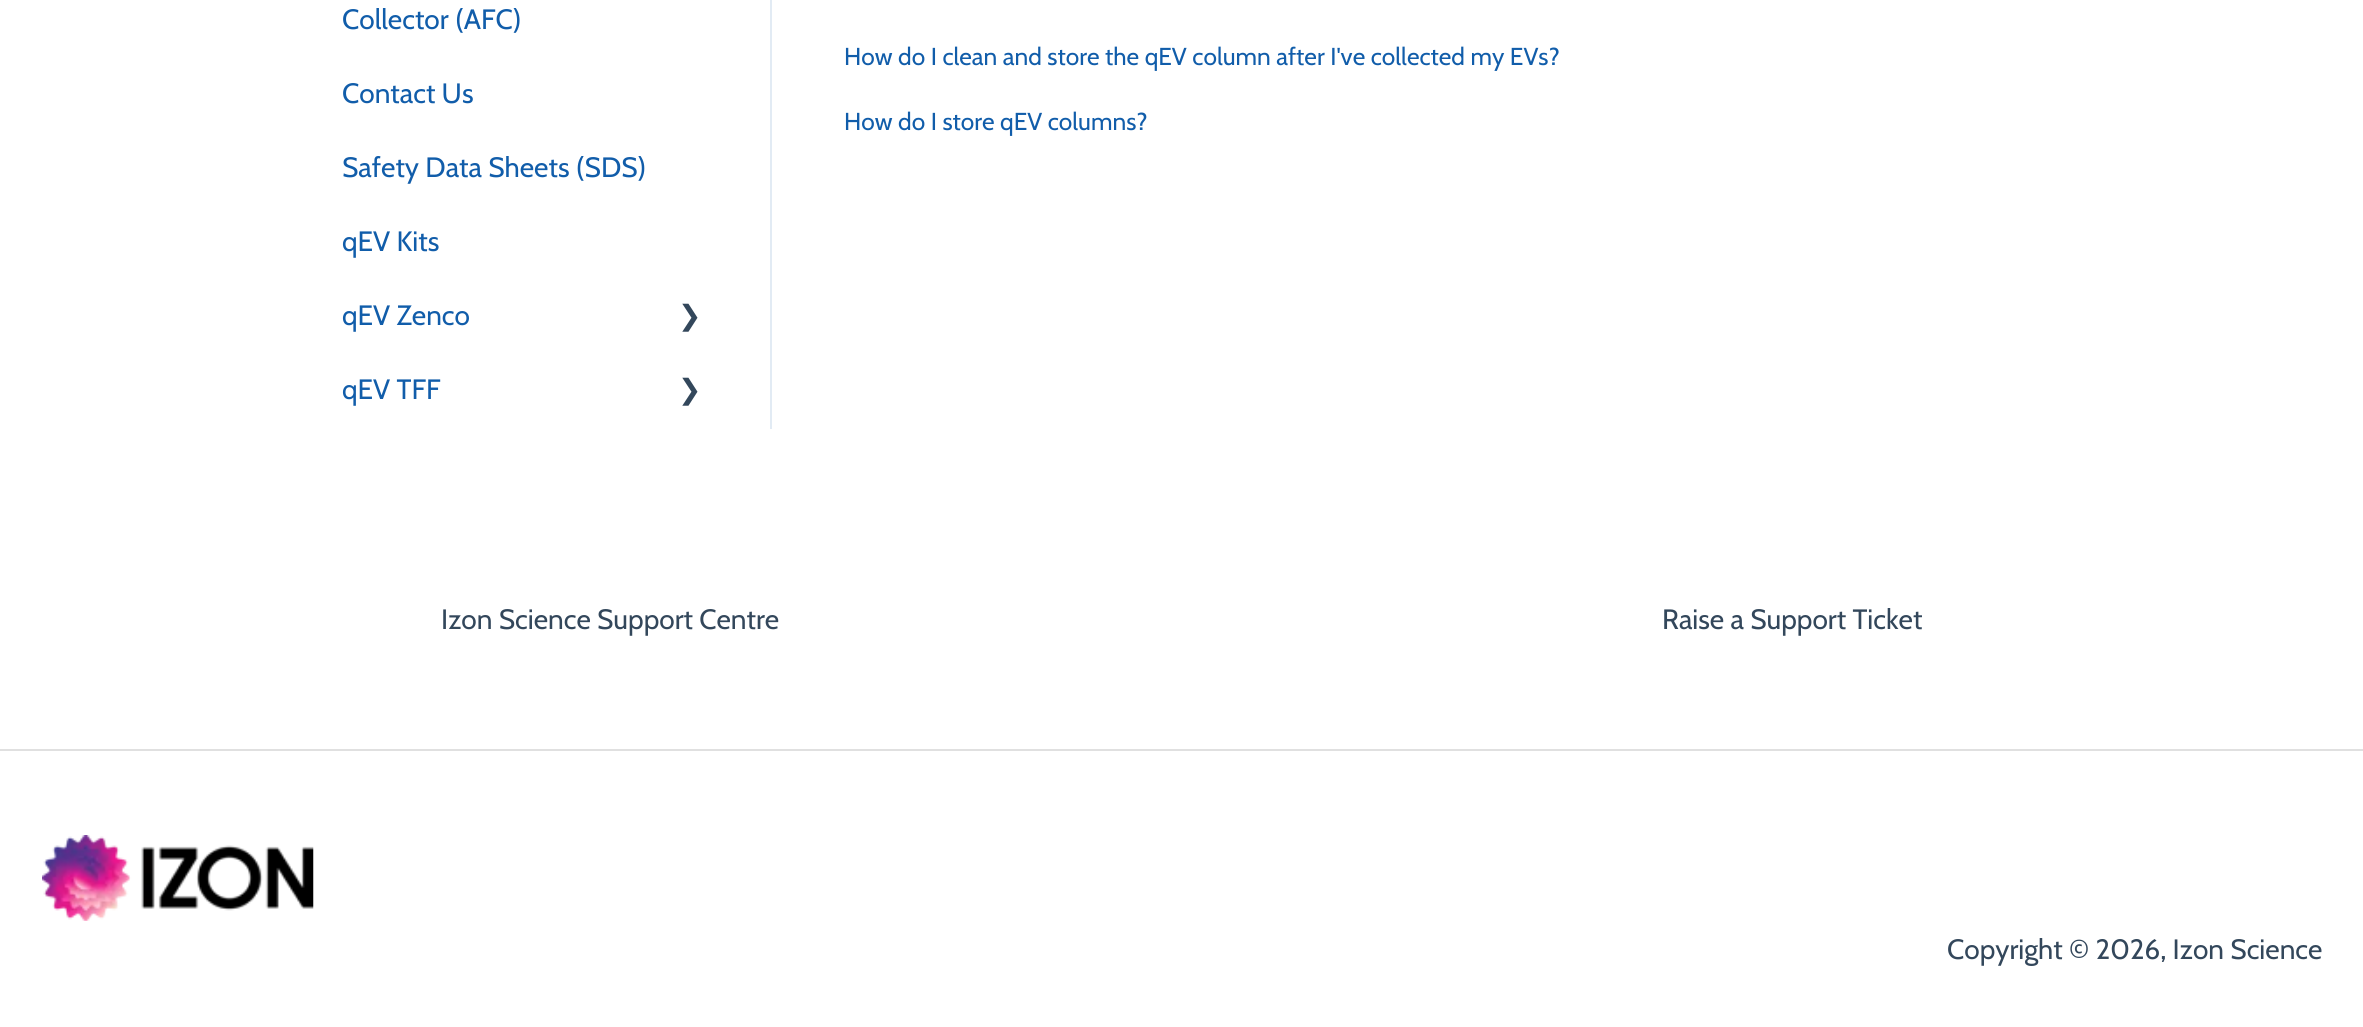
#include <cairo.h>
#include <math.h>
#include <stddef.h>


static void rgb(cairo_t *cr, int r, int g, int b)
{
	cairo_set_source_rgb(cr, r / 255.0, g / 255.0, b / 255.0);
}

static void face(cairo_t *cr, const char *family, double size, int italic, int bold)
{
	cairo_select_font_face(cr, family, italic ? CAIRO_FONT_SLANT_ITALIC : CAIRO_FONT_SLANT_NORMAL,
		bold ? CAIRO_FONT_WEIGHT_BOLD : CAIRO_FONT_WEIGHT_NORMAL);
	cairo_set_font_size(cr, size);
}

static void label(cairo_t *cr, double x, double y, const char *s)
{
	cairo_move_to(cr, x, y);
	cairo_show_text(cr, s);
}

static void rect(cairo_t *cr, double x, double y, double w, double h)
{
	cairo_rectangle(cr, x, y, w, h);
	cairo_fill(cr);
}

static void image(cairo_t *cr, const char *path, double x, double y, double w, double h)
{
	cairo_surface_t *image = cairo_image_surface_create_from_png(path);
	cairo_save(cr);
	cairo_set_source_surface(cr, image, x, y);
	cairo_rectangle(cr, x, y, w, h);
	cairo_fill(cr);
	cairo_restore(cr);
	cairo_surface_destroy(image);
}

static void draw(cairo_t *cr) {
	rgb(cr, 255, 255, 255);
	cairo_paint(cr);
	rgb(cr, 226, 235, 244);
	rect(cr, 770, 0, 2, 429);
	face(cr, "Cabin", 28, 0, 0);
	rgb(cr, 17, 93, 170);
	label(cr, 342, 29, "Collector (AFC)");
	label(cr, 342, 103, "Contact Us");
	label(cr, 342, 177, "Safety Data Sheets (SDS)");
	label(cr, 342, 251, "qEV Kits");
	label(cr, 342, 325, "qEV Zenco");
	face(cr, "DejaVu Sans", 28, 0, 0);
	rgb(cr, 51, 71, 91);
	label(cr, 678, 325, "❯");
	face(cr, "Cabin", 28, 0, 0);
	rgb(cr, 17, 93, 170);
	label(cr, 342, 399, "qEV TFF");
	face(cr, "DejaVu Sans", 28, 0, 0);
	rgb(cr, 51, 71, 91);
	label(cr, 678, 399, "❯");
	face(cr, "Cabin", 24.5, 0, 0);
	rgb(cr, 17, 93, 170);
	label(cr, 844, 65, "How do I clean and store the qEV column after I've collected my EVs?");
	label(cr, 844, 130, "How do I store qEV columns?");
	face(cr, "Cabin", 28, 0, 0);
	rgb(cr, 51, 71, 91);
	label(cr, 441, 629, "Izon Science Support Centre");
	label(cr, 1662, 629, "Raise a Support Ticket");
	rgb(cr, 224, 224, 224);
	rect(cr, 0, 749, 2363, 2);
	image(cr, "image0.png", 42, 835, 272, 86);
	rgb(cr, 51, 71, 91);
	label(cr, 1947, 959, "Copyright © 2026, Izon Science");
}

int main(void) {
	cairo_surface_t *surface = cairo_image_surface_create(CAIRO_FORMAT_RGB24, 2363, 1027);
	cairo_t *cr = cairo_create(surface);
	cairo_font_options_t *options = cairo_font_options_create();
	cairo_font_options_set_hint_metrics(options, CAIRO_HINT_METRICS_OFF);
	cairo_font_options_set_hint_style(options, CAIRO_HINT_STYLE_NONE);
	cairo_set_font_options(cr, options);
	cairo_set_miter_limit(cr, 4);
	draw(cr);
	cairo_surface_write_to_png(surface, "render.png");
	cairo_font_options_destroy(options);
	cairo_destroy(cr);
	cairo_surface_destroy(surface);
	return 0;
}
